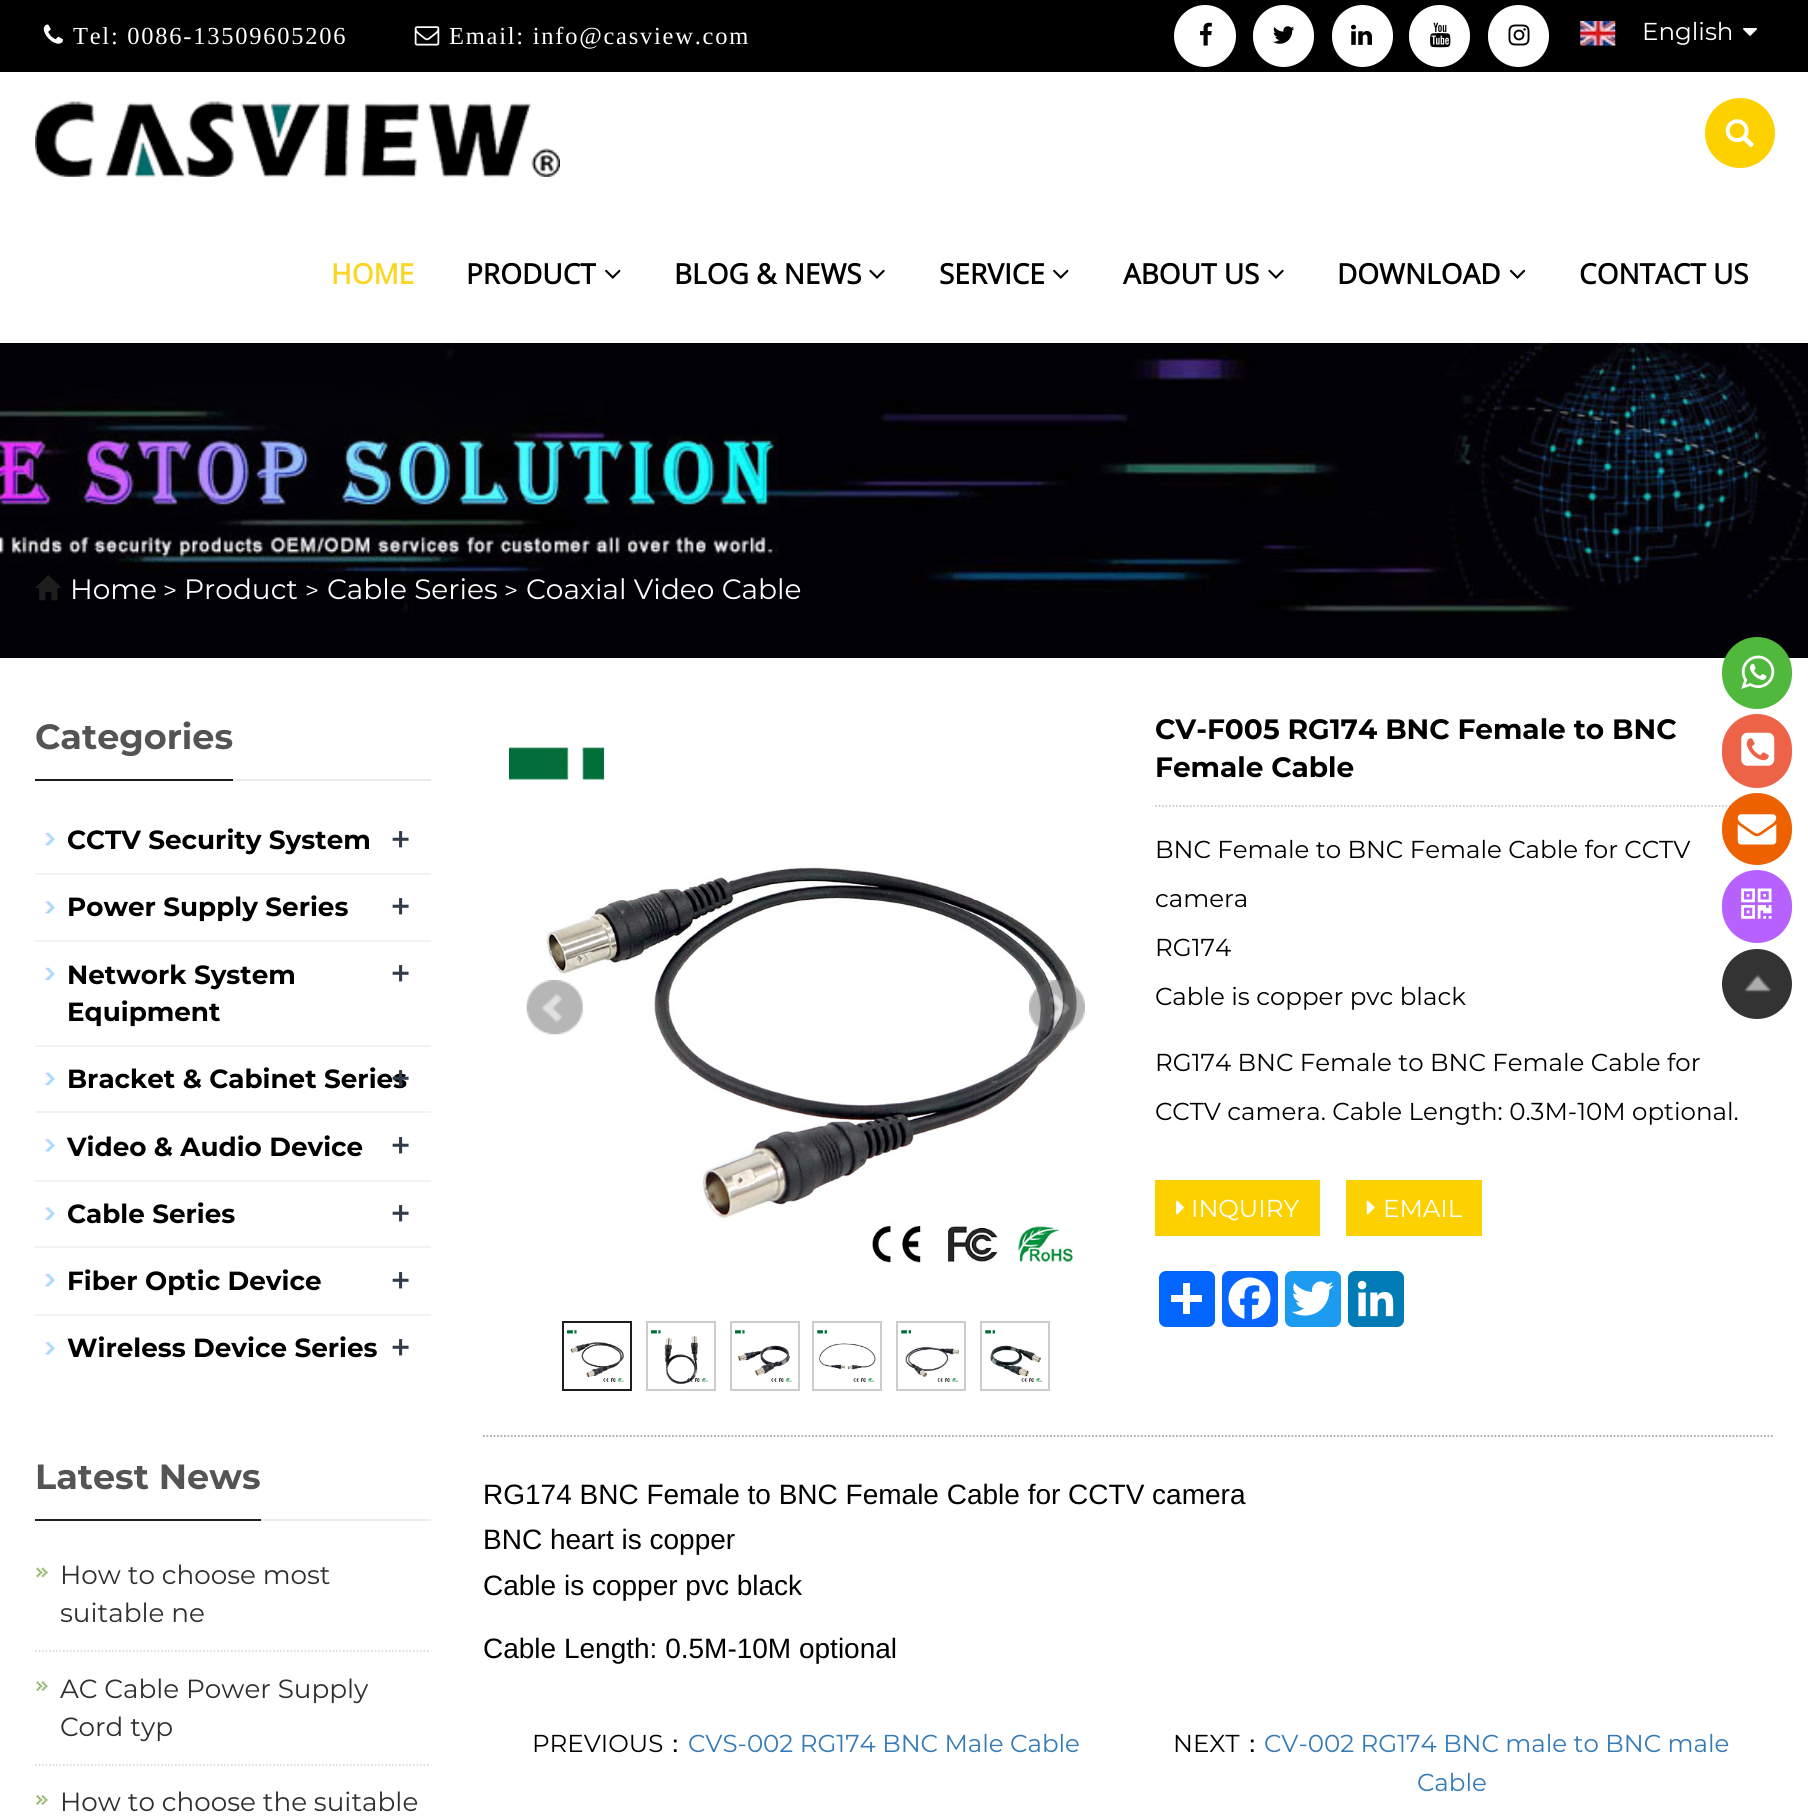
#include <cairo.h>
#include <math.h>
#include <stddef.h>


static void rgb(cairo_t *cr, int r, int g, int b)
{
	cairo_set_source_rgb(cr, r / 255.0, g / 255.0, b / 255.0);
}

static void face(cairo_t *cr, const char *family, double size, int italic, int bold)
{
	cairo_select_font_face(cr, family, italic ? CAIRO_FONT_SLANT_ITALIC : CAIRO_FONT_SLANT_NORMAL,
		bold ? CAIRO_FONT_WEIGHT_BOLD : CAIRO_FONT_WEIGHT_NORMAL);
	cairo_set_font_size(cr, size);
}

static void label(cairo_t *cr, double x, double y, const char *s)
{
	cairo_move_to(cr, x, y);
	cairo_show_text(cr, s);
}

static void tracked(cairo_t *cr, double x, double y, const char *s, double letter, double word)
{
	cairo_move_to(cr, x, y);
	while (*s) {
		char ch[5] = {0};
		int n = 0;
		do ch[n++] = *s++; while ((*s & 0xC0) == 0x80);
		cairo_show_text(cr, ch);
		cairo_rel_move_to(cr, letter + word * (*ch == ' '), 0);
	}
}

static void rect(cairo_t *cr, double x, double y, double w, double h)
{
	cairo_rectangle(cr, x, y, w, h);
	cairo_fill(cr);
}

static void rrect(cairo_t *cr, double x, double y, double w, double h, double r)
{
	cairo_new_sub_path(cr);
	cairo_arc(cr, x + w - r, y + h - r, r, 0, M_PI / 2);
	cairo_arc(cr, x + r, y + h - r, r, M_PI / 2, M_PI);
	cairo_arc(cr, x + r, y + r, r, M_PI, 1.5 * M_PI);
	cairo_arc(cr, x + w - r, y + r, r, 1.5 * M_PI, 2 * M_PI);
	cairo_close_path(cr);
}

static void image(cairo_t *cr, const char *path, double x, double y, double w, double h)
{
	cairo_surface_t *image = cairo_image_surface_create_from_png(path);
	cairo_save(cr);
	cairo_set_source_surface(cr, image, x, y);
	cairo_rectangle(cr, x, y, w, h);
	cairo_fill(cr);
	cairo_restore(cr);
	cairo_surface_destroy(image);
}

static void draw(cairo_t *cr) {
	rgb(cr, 255, 255, 255);
	cairo_paint(cr);
	rgb(cr, 0, 0, 0);
	rect(cr, 0, 0, 1808, 72);
	image(cr, "image0.png", 43, 24, 20, 20);
	face(cr, "Liberation Serif", 24.5, 0, 0);
	rgb(cr, 255, 255, 255);
	tracked(cr, 73, 44, "Tel: 0086-13509605206", 1.75, 0);
	image(cr, "image1.png", 414, 26, 26, 20);
	tracked(cr, 449, 44, "Email: info@casview.com", 1.75, 0);
	cairo_new_path(cr);
	cairo_arc(cr, 1205, 36, 31, 0, 2 * M_PI);
	cairo_fill(cr);
	image(cr, "image2.png", 1200, 22, 12, 24);
	rrect(cr, 1253, 5, 61, 62, 30.5);
	cairo_fill(cr);
	image(cr, "image3.png", 1273, 26, 22, 18);
	rrect(cr, 1332, 5, 61, 62, 30.5);
	cairo_fill(cr);
	image(cr, "image4.png", 1351, 24, 21, 21);
	rrect(cr, 1409, 5, 61, 62, 30.5);
	cairo_fill(cr);
	image(cr, "image5.png", 1430, 22, 21, 26);
	rrect(cr, 1488, 5, 61, 62, 30.5);
	cairo_fill(cr);
	image(cr, "image6.png", 1508, 24, 22, 22);
	image(cr, "image7.png", 1580, 21, 36, 25);
	face(cr, "Montserrat", 24.5, 0, 0);
	label(cr, 1642, 40, "English");
	image(cr, "image8.png", 1743, 28, 14, 8);
	image(cr, "image9.png", 35, 101, 525, 76);
	rgb(cr, 253, 208, 0);
	cairo_arc(cr, 1740, 133, 35, 0, 2 * M_PI);
	cairo_fill(cr);
	image(cr, "image10.png", 1725, 119, 29, 29);
	face(cr, "Open Sans", 28, 0, 1);
	rgb(cr, 251, 213, 36);
	label(cr, 331, 284, "HOME");
	rgb(cr, 0, 0, 0);
	label(cr, 466, 284, "PRODUCT");
	image(cr, "image11.png", 605, 269, 16, 10);
	label(cr, 674, 284, "BLOG & NEWS");
	image(cr, "image12.png", 869, 269, 16, 10);
	label(cr, 939, 284, "SERVICE");
	image(cr, "image11.png", 1053, 269, 16, 10);
	label(cr, 1123, 284, "ABOUT US");
	image(cr, "image12.png", 1268, 269, 16, 10);
	label(cr, 1337, 284, "DOWNLOAD");
	image(cr, "image13.png", 1509, 269, 17, 10);
	label(cr, 1579, 284, "CONTACT US");
	image(cr, "image14.png", 0, 343, 1808, 315);
	image(cr, "image15.png", 35, 575, 26, 26);
	face(cr, "Montserrat", 28, 0, 0);
	rgb(cr, 255, 255, 255);
	label(cr, 70, 599, "Home");
	face(cr, "Montserrat", 24.5, 0, 0);
	label(cr, 163, 599, ">");
	face(cr, "Montserrat", 28, 0, 0);
	label(cr, 184, 599, "Product");
	face(cr, "Montserrat", 24.5, 0, 0);
	label(cr, 305, 599, ">");
	face(cr, "Montserrat", 28, 0, 0);
	label(cr, 327, 599, "Cable Series");
	face(cr, "Montserrat", 24.5, 0, 0);
	label(cr, 504, 599, ">");
	face(cr, "Montserrat", 28, 0, 0);
	label(cr, 526, 599, "Coaxial Video Cable");
	rgb(cr, 235, 235, 235);
	rect(cr, 233, 779, 198, 2);
	rgb(cr, 30, 30, 30);
	rect(cr, 35, 779, 198, 2);
	face(cr, "Montserrat", 35, 0, 1);
	rgb(cr, 84, 84, 84);
	label(cr, 35, 749, "Categories");
	image(cr, "image16.png", 45, 833, 10, 13);
	rgb(cr, 242, 242, 242);
	rect(cr, 35, 873, 396, 2);
	face(cr, "Montserrat", 26.25, 0, 1);
	rgb(cr, 0, 0, 0);
	label(cr, 67, 849, "CCTV Security System");
	face(cr, "Open Sans", 32, 0, 1);
	rgb(cr, 48, 60, 75);
	label(cr, 391, 851, "+");
	image(cr, "image17.png", 45, 901, 10, 13);
	rgb(cr, 242, 242, 242);
	rect(cr, 35, 940, 396, 2);
	face(cr, "Montserrat", 26.25, 0, 1);
	rgb(cr, 0, 0, 0);
	label(cr, 67, 916, "Power Supply Series");
	face(cr, "Open Sans", 32, 0, 1);
	rgb(cr, 48, 60, 75);
	label(cr, 391, 918, "+");
	image(cr, "image18.png", 45, 967, 10, 13);
	rgb(cr, 242, 242, 242);
	rect(cr, 35, 1045, 396, 2);
	face(cr, "Montserrat", 26.25, 0, 1);
	rgb(cr, 0, 0, 0);
	label(cr, 67, 984, "Network System");
	face(cr, "Open Sans", 32, 0, 1);
	rgb(cr, 48, 60, 75);
	label(cr, 391, 985, "+");
	face(cr, "Montserrat", 26.25, 0, 1);
	rgb(cr, 0, 0, 0);
	label(cr, 67, 1021, "Equipment");
	image(cr, "image18.png", 45, 1072, 10, 13);
	rgb(cr, 242, 242, 242);
	rect(cr, 35, 1111, 396, 2);
	rgb(cr, 0, 0, 0);
	label(cr, 67, 1088, "Bracket & Cabinet Series");
	face(cr, "Open Sans", 32, 0, 1);
	rgb(cr, 48, 60, 75);
	label(cr, 391, 1090, "+");
	image(cr, "image17.png", 45, 1139, 10, 13);
	rgb(cr, 242, 242, 242);
	rect(cr, 35, 1180, 396, 2);
	face(cr, "Montserrat", 26.25, 0, 1);
	rgb(cr, 0, 0, 0);
	label(cr, 67, 1156, "Video & Audio Device");
	face(cr, "Open Sans", 32, 0, 1);
	rgb(cr, 48, 60, 75);
	label(cr, 391, 1157, "+");
	image(cr, "image19.png", 45, 1207, 10, 13);
	rgb(cr, 242, 242, 242);
	rect(cr, 35, 1246, 396, 2);
	face(cr, "Montserrat", 26.25, 0, 1);
	rgb(cr, 0, 0, 0);
	label(cr, 67, 1223, "Cable Series");
	face(cr, "Open Sans", 32, 0, 1);
	rgb(cr, 48, 60, 75);
	label(cr, 391, 1225, "+");
	image(cr, "image16.png", 45, 1274, 10, 13);
	rgb(cr, 242, 242, 242);
	rect(cr, 35, 1314, 396, 2);
	face(cr, "Montserrat", 26.25, 0, 1);
	rgb(cr, 0, 0, 0);
	label(cr, 67, 1290, "Fiber Optic Device");
	face(cr, "Open Sans", 32, 0, 1);
	rgb(cr, 48, 60, 75);
	label(cr, 391, 1292, "+");
	image(cr, "image17.png", 45, 1342, 10, 13);
	face(cr, "Montserrat", 26.25, 0, 1);
	rgb(cr, 0, 0, 0);
	label(cr, 67, 1357, "Wireless Device Series");
	face(cr, "Open Sans", 32, 0, 1);
	rgb(cr, 48, 60, 75);
	label(cr, 391, 1359, "+");
	rgb(cr, 235, 235, 235);
	rect(cr, 261, 1519, 170, 2);
	rgb(cr, 30, 30, 30);
	rect(cr, 35, 1519, 226, 2);
	face(cr, "Montserrat", 35, 0, 1);
	rgb(cr, 84, 84, 84);
	label(cr, 35, 1489, "Latest News");
	image(cr, "image20.png", 36, 1567, 12, 11);
	cairo_new_path(cr);
	cairo_move_to(cr, 35, 1651);
	cairo_line_to(cr, 430.5, 1651);
	rgb(cr, 221, 221, 221);
	cairo_set_line_width(cr, 1.8);
	cairo_set_dash(cr, (double[]){1.75, 1.75}, 2, 0);
	cairo_stroke(cr);
	face(cr, "Montserrat", 26.25, 0, 0);
	rgb(cr, 47, 47, 47);
	label(cr, 60, 1584, "How to choose most");
	label(cr, 60, 1622, "suitable ne");
	image(cr, "image21.png", 36, 1681, 12, 10);
	cairo_new_path(cr);
	cairo_move_to(cr, 35, 1765);
	cairo_line_to(cr, 430.5, 1765);
	rgb(cr, 221, 221, 221);
	cairo_stroke(cr);
	rgb(cr, 47, 47, 47);
	label(cr, 60, 1698, "AC Cable Power Supply");
	label(cr, 60, 1736, "Cord typ");
	image(cr, "image22.png", 36, 1795, 12, 10);
	label(cr, 60, 1811, "How to choose the suitable");
	image(cr, "image23.png", 509, 747, 570, 516);
	image(cr, "image24.png", 526, 980, 57, 55);
	image(cr, "image25.png", 1029, 980, 56, 54);
	cairo_rectangle(cr, 563, 1322, 68, 68);
	rgb(cr, 30, 30, 30);
	cairo_set_line_width(cr, 2);
	cairo_set_dash(cr, NULL, 0, 0);
	cairo_stroke(cr);
	cairo_rectangle(cr, 647, 1322, 68, 68);
	rgb(cr, 204, 204, 204);
	cairo_stroke(cr);
	cairo_rectangle(cr, 731, 1322, 68, 68);
	cairo_stroke(cr);
	cairo_rectangle(cr, 813, 1322, 68, 68);
	cairo_stroke(cr);
	cairo_rectangle(cr, 897, 1322, 68, 68);
	cairo_stroke(cr);
	cairo_rectangle(cr, 981, 1322, 68, 68);
	cairo_stroke(cr);
	image(cr, "image26.png", 567, 1330, 57, 52);
	image(cr, "image27.png", 651, 1330, 57, 55);
	image(cr, "image28.png", 735, 1330, 57, 52);
	image(cr, "image29.png", 817, 1330, 59, 52);
	image(cr, "image30.png", 901, 1330, 58, 52);
	image(cr, "image31.png", 985, 1330, 57, 52);
	cairo_new_path(cr);
	cairo_move_to(cr, 1155, 806);
	cairo_line_to(cr, 1748, 806);
	cairo_set_line_width(cr, 1.8);
	cairo_set_dash(cr, (double[]){1.75, 1.75}, 2, 0);
	cairo_stroke(cr);
	face(cr, "Montserrat", 28, 0, 1);
	rgb(cr, 0, 0, 0);
	label(cr, 1155, 739, "CV-F005 RG174 BNC Female to BNC");
	label(cr, 1155, 777, "Female Cable");
	face(cr, "Montserrat", 24.5, 0, 0);
	label(cr, 1155, 858, "BNC Female to BNC Female Cable for CCTV");
	label(cr, 1155, 907, "camera");
	label(cr, 1155, 956, "RG174");
	label(cr, 1155, 1005, "Cable is copper pvc black");
	label(cr, 1155, 1071, "RG174 BNC Female to BNC Female Cable for");
	label(cr, 1155, 1120, "CCTV camera. Cable Length: 0.3M-10M optional.");
	rgb(cr, 253, 208, 0);
	rect(cr, 1155, 1180, 165, 56);
	image(cr, "image32.png", 1176, 1200, 8, 15);
	rgb(cr, 255, 255, 255);
	label(cr, 1191, 1217, "INQUIRY");
	rgb(cr, 253, 208, 0);
	rect(cr, 1346, 1180, 136, 56);
	image(cr, "image33.png", 1366, 1200, 9, 15);
	rgb(cr, 255, 255, 255);
	label(cr, 1383, 1217, "EMAIL");
	rgb(cr, 1, 102, 255);
	rrect(cr, 1159, 1271, 56, 56, 7);
	cairo_fill(cr);
	rgb(cr, 255, 255, 255);
	rect(cr, 1183, 1283, 7, 31);
	rect(cr, 1171, 1295, 31, 7);
	rgb(cr, 8, 102, 255);
	rrect(cr, 1222, 1271, 56, 56, 7);
	cairo_fill(cr);
	image(cr, "image34.png", 1228, 1277, 43, 43);
	rgb(cr, 29, 155, 240);
	rrect(cr, 1285, 1271, 56, 56, 7);
	cairo_fill(cr);
	image(cr, "image35.png", 1291, 1281, 43, 35);
	rgb(cr, 0, 123, 181);
	rrect(cr, 1348, 1271, 56, 56, 7);
	cairo_fill(cr);
	image(cr, "image36.png", 1357, 1280, 37, 37);
	cairo_new_path(cr);
	cairo_move_to(cr, 483, 1436);
	cairo_line_to(cr, 1774.5, 1436);
	rgb(cr, 169, 169, 169);
	cairo_stroke(cr);
	face(cr, "Liberation Sans", 28, 0, 0);
	rgb(cr, 0, 0, 0);
	label(cr, 483, 1504, "RG174 BNC Female to BNC Female Cable for CCTV camera");
	label(cr, 483, 1549, "BNC heart is copper");
	label(cr, 483, 1595, "Cable is copper pvc black");
	label(cr, 483, 1658, "Cable Length: 0.5M-10M optional");
	face(cr, "Montserrat", 24.5, 0, 0);
	label(cr, 532, 1752, "PREVIOUS");
	face(cr, "WenQuanYi Zen Hei Medium", 24.5, 0, 0);
	label(cr, 663, 1752, "：");
	face(cr, "Montserrat", 24.5, 0, 0);
	rgb(cr, 51, 122, 183);
	label(cr, 688, 1752, "CVS-002 RG174 BNC Male Cable");
	rgb(cr, 0, 0, 0);
	label(cr, 1173, 1752, "NEXT");
	face(cr, "WenQuanYi Zen Hei Medium", 24.5, 0, 0);
	label(cr, 1240, 1752, "：");
	face(cr, "Montserrat", 24.5, 0, 0);
	rgb(cr, 51, 122, 183);
	label(cr, 1264, 1752, "CV-002 RG174 BNC male to BNC male");
	label(cr, 1417, 1791, "Cable");
	rgb(cr, 80, 184, 60);
	rrect(cr, 1722, 637, 70, 72, 35);
	cairo_fill(cr);
	image(cr, "image37.png", 1741, 655, 34, 34);
	rgb(cr, 237, 99, 71);
	rrect(cr, 1722, 714, 70, 74, 35);
	cairo_fill(cr);
	image(cr, "image38.png", 1741, 732, 34, 34);
	rgb(cr, 238, 97, 0);
	rrect(cr, 1722, 793, 70, 72, 35);
	cairo_fill(cr);
	image(cr, "image39.png", 1737, 814, 40, 31);
	rgb(cr, 183, 98, 255);
	rrect(cr, 1722, 870, 70, 73, 35);
	cairo_fill(cr);
	image(cr, "image40.png", 1741, 888, 31, 31);
	rgb(cr, 51, 51, 51);
	cairo_arc(cr, 1757, 984, 35, 0, 2 * M_PI);
	cairo_fill(cr);
	image(cr, "image41.png", 1744, 974, 28, 19);
}

int main(void) {
	cairo_surface_t *surface = cairo_image_surface_create(CAIRO_FORMAT_RGB24, 1808, 1819);
	cairo_t *cr = cairo_create(surface);
	cairo_font_options_t *options = cairo_font_options_create();
	cairo_font_options_set_hint_metrics(options, CAIRO_HINT_METRICS_OFF);
	cairo_font_options_set_hint_style(options, CAIRO_HINT_STYLE_NONE);
	cairo_set_font_options(cr, options);
	cairo_set_miter_limit(cr, 4);
	draw(cr);
	cairo_surface_write_to_png(surface, "render.png");
	cairo_font_options_destroy(options);
	cairo_destroy(cr);
	cairo_surface_destroy(surface);
	return 0;
}
